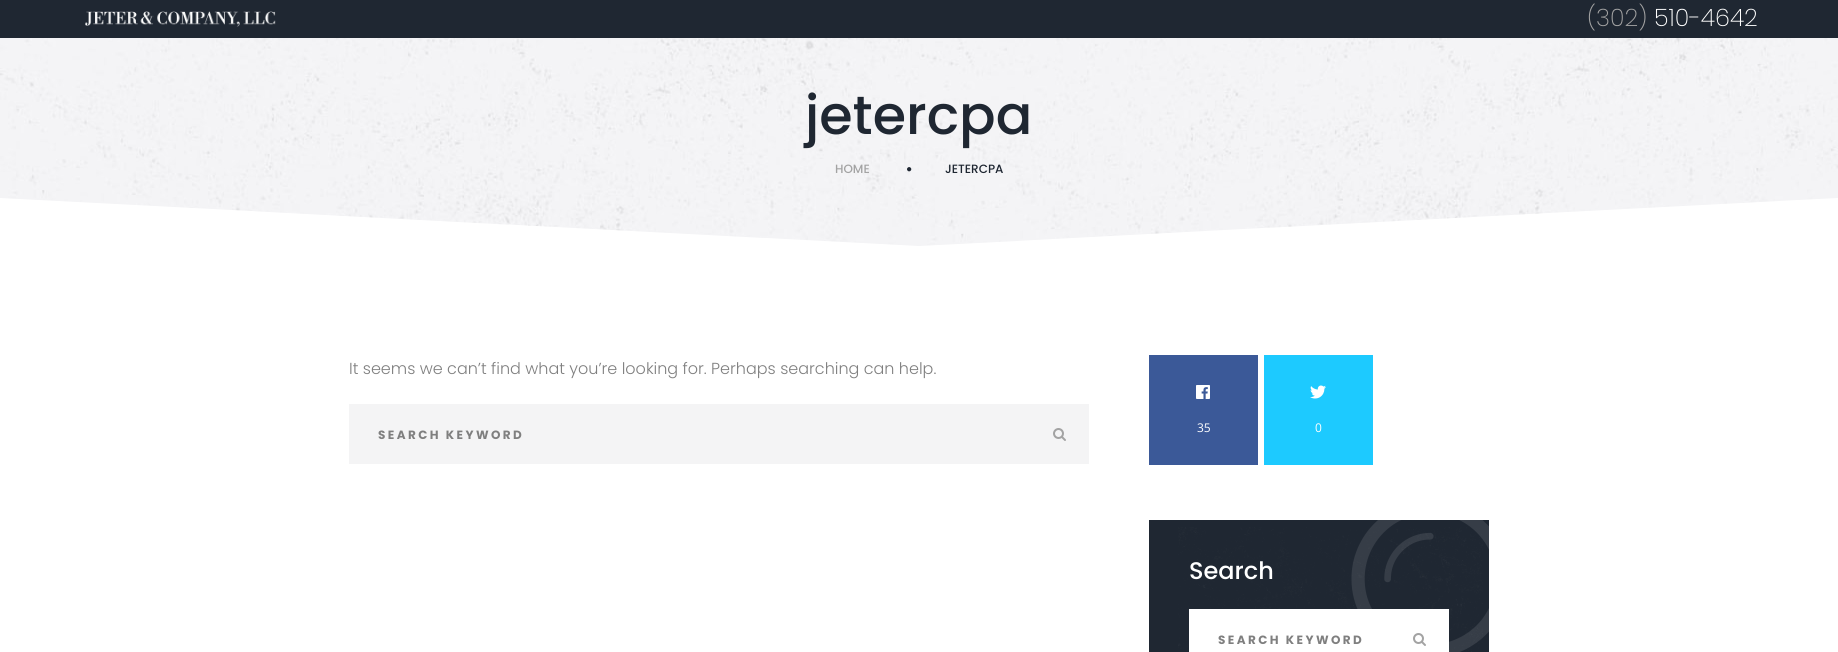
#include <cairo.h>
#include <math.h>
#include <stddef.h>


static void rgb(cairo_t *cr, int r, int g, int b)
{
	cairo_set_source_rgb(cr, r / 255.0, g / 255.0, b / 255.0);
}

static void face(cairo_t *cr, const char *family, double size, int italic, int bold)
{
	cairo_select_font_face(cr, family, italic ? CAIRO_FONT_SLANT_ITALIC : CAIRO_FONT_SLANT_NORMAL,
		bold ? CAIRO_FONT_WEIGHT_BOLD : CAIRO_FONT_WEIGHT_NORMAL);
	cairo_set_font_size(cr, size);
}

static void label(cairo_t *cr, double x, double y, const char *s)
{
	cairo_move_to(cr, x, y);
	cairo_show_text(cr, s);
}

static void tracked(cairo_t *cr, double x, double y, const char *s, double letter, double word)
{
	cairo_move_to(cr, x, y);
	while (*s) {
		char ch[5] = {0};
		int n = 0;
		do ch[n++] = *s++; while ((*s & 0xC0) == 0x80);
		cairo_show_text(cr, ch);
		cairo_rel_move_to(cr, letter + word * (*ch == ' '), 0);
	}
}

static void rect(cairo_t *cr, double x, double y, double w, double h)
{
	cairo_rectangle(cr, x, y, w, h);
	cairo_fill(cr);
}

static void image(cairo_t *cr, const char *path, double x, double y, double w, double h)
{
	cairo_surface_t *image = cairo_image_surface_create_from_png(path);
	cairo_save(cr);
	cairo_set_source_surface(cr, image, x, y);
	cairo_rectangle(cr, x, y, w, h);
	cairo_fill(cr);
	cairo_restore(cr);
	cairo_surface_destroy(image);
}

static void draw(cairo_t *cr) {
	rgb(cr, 255, 255, 255);
	cairo_paint(cr);
	rgb(cr, 31, 39, 50);
	rect(cr, 0, 0, 1838, 38);
	image(cr, "image0.png", 85, 11, 191, 16);
	face(cr, "Poppins ExtraLight", 24, 0, 0);
	rgb(cr, 163, 163, 163);
	label(cr, 1587, 26, "(302)");
	rgb(cr, 255, 255, 255);
	label(cr, 1654, 26, "510-4642");
	image(cr, "image1.png", 0, 38, 919, 208);
	image(cr, "image2.png", 919, 38, 919, 208);
	face(cr, "Poppins Medium", 54, 0, 0);
	rgb(cr, 31, 39, 50);
	label(cr, 805, 134, "jetercpa");
	face(cr, "Poppins Medium", 12, 0, 0);
	rgb(cr, 163, 163, 163);
	label(cr, 835, 173, "HOME");
	image(cr, "image3.png", 907, 167, 5, 5);
	rgb(cr, 31, 39, 50);
	label(cr, 945, 173, "JETERCPA");
	face(cr, "Poppins Light", 16, 0, 0);
	rgb(cr, 127, 127, 127);
	label(cr, 349, 374, "It seems we can’t find what you’re looking for. Perhaps searching can help.");
	rgb(cr, 244, 244, 245);
	rect(cr, 349, 404, 740, 60);
	face(cr, "Poppins", 12, 0, 1);
	rgb(cr, 127, 127, 127);
	tracked(cr, 378, 439, "SEARCH KEYWORD", 2.4, 0);
	image(cr, "image4.png", 1053, 428, 13, 13);
	rgb(cr, 59, 89, 152);
	rect(cr, 1149, 355, 109, 110);
	image(cr, "image5.png", 1196, 385, 14, 14);
	face(cr, "Open Sans", 12, 0, 0);
	rgb(cr, 255, 255, 255);
	label(cr, 1197, 432, "35");
	rgb(cr, 29, 202, 255);
	rect(cr, 1264, 355, 109, 110);
	image(cr, "image6.png", 1310, 385, 16, 14);
	rgb(cr, 255, 255, 255);
	label(cr, 1315, 432, "0");
	rgb(cr, 31, 39, 50);
	rect(cr, 1149, 520, 340, 132);
	image(cr, "image7.png", 1178, 527, 305, 125);
	face(cr, "Poppins Medium", 24, 0, 0);
	rgb(cr, 255, 255, 255);
	label(cr, 1189, 579, "Search");
	image(cr, "image8.png", 1351, 520, 138, 132);
	rect(cr, 1189, 609, 260, 43);
	face(cr, "Poppins", 12, 0, 1);
	rgb(cr, 127, 127, 127);
	tracked(cr, 1218, 644, "SEARCH KEYWORD", 2.4, 0);
	image(cr, "image9.png", 1413, 633, 13, 13);
}

int main(void) {
	cairo_surface_t *surface = cairo_image_surface_create(CAIRO_FORMAT_RGB24, 1838, 652);
	cairo_t *cr = cairo_create(surface);
	cairo_font_options_t *options = cairo_font_options_create();
	cairo_font_options_set_hint_metrics(options, CAIRO_HINT_METRICS_OFF);
	cairo_font_options_set_hint_style(options, CAIRO_HINT_STYLE_NONE);
	cairo_set_font_options(cr, options);
	cairo_set_miter_limit(cr, 4);
	draw(cr);
	cairo_surface_write_to_png(surface, "render.png");
	cairo_font_options_destroy(options);
	cairo_destroy(cr);
	cairo_surface_destroy(surface);
	return 0;
}
